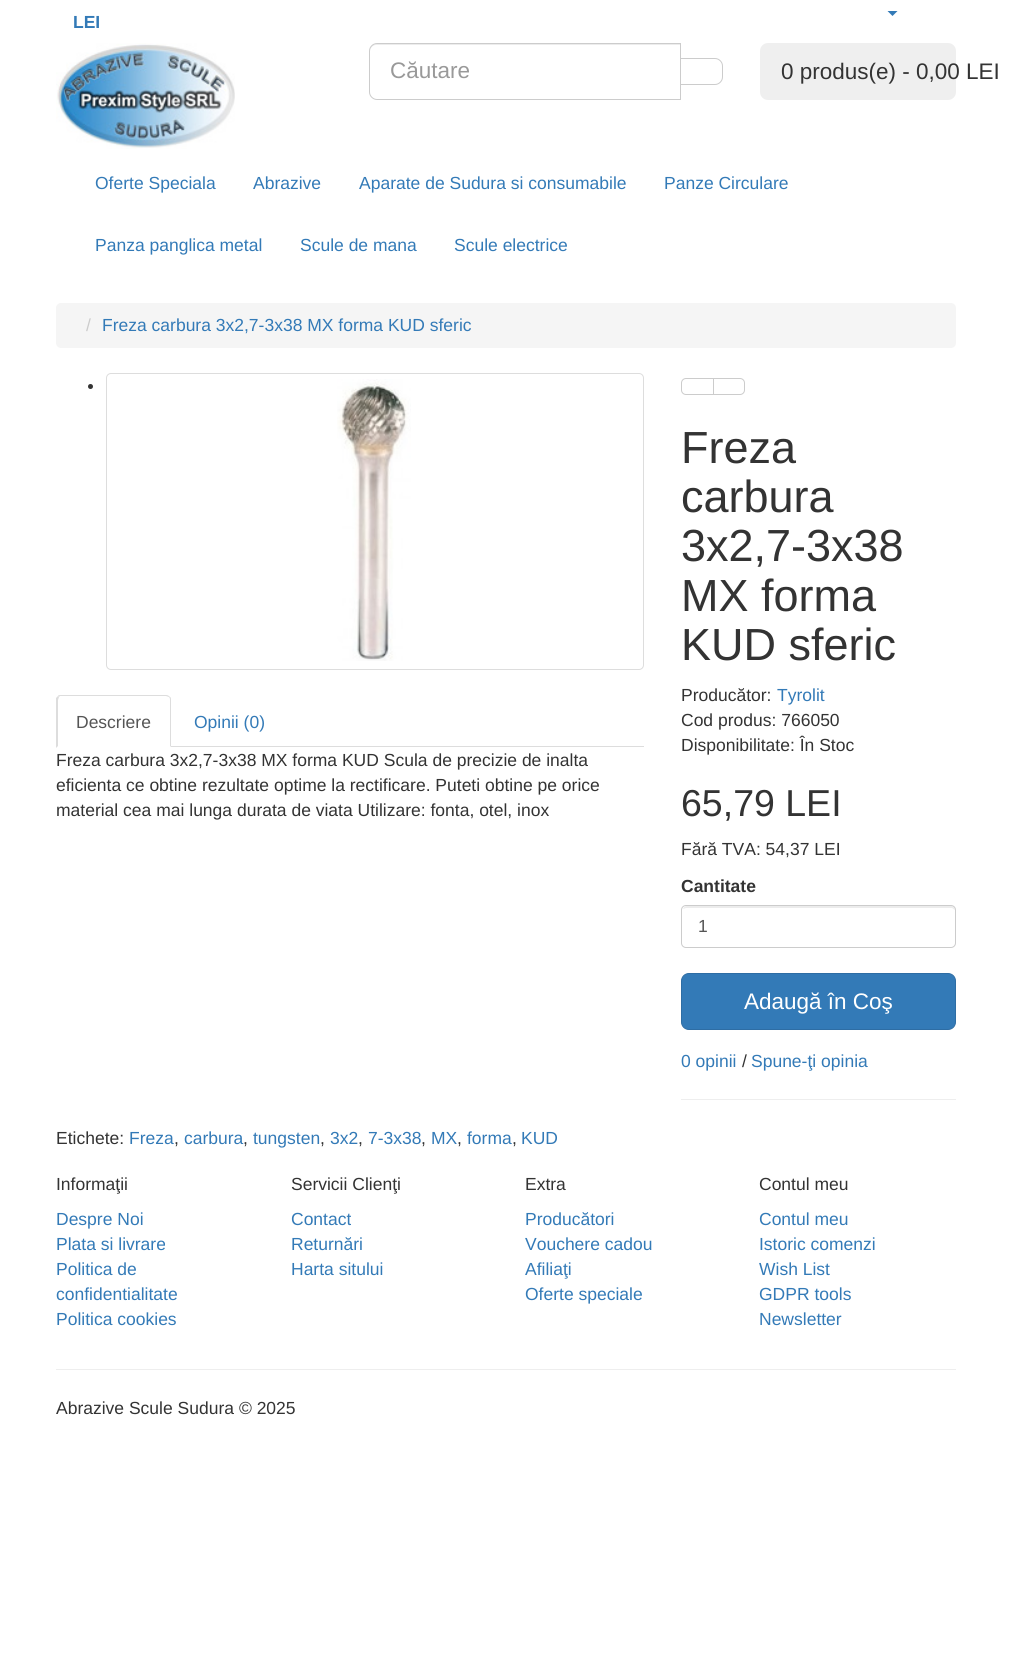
#include <cairo.h>
#include <math.h>
#include <stddef.h>


static void rgb(cairo_t *cr, int r, int g, int b)
{
	cairo_set_source_rgb(cr, r / 255.0, g / 255.0, b / 255.0);
}

static void face(cairo_t *cr, const char *family, double size, int italic, int bold)
{
	cairo_select_font_face(cr, family, italic ? CAIRO_FONT_SLANT_ITALIC : CAIRO_FONT_SLANT_NORMAL,
		bold ? CAIRO_FONT_WEIGHT_BOLD : CAIRO_FONT_WEIGHT_NORMAL);
	cairo_set_font_size(cr, size);
}

static void label(cairo_t *cr, double x, double y, const char *s)
{
	cairo_move_to(cr, x, y);
	cairo_show_text(cr, s);
}

static void rect(cairo_t *cr, double x, double y, double w, double h)
{
	cairo_rectangle(cr, x, y, w, h);
	cairo_fill(cr);
}

static void rrect(cairo_t *cr, double x, double y, double w, double h, double r)
{
	cairo_new_sub_path(cr);
	cairo_arc(cr, x + w - r, y + h - r, r, 0, M_PI / 2);
	cairo_arc(cr, x + r, y + h - r, r, M_PI / 2, M_PI);
	cairo_arc(cr, x + r, y + r, r, M_PI, 1.5 * M_PI);
	cairo_arc(cr, x + w - r, y + r, r, 1.5 * M_PI, 2 * M_PI);
	cairo_close_path(cr);
}

static void image(cairo_t *cr, const char *path, double x, double y, double w, double h)
{
	cairo_surface_t *image = cairo_image_surface_create_from_png(path);
	cairo_save(cr);
	cairo_set_source_surface(cr, image, x, y);
	cairo_rectangle(cr, x, y, w, h);
	cairo_fill(cr);
	cairo_restore(cr);
	cairo_surface_destroy(image);
}

static void draw(cairo_t *cr) {
	rgb(cr, 255, 255, 255);
	cairo_paint(cr);
	rgb(cr, 51, 122, 183);
	cairo_new_path(cr);
	cairo_move_to(cr, 887.5, 11);
	cairo_line_to(cr, 897.5, 11);
	cairo_line_to(cr, 892.5, 16);
	cairo_close_path(cr);
	cairo_fill(cr);
	face(cr, "Liberation Sans", 17.5, 0, 1);
	label(cr, 73, 28, "LEI");
	image(cr, "image0.png", 56, 43, 179, 106);
	rgb(cr, 236, 236, 236);
	cairo_new_path(cr);
	cairo_move_to(cr, 376, 45);
	cairo_line_to(cr, 680, 45);
	cairo_line_to(cr, 680, 44);
	cairo_line_to(cr, 376, 44);
	cairo_curve_to(cr, 372, 44, 370, 47, 370, 51);
	cairo_curve_to(cr, 370, 48, 373, 45, 376, 45);
	cairo_close_path(cr);
	cairo_fill(cr);
	cairo_new_path(cr);
	cairo_move_to(cr, 377, 43.5);
	cairo_line_to(cr, 680.5, 43.5);
	cairo_line_to(cr, 680.5, 99.5);
	cairo_line_to(cr, 377, 99.5);
	cairo_curve_to(cr, 373, 99.5, 369.5, 96, 369.5, 92);
	cairo_line_to(cr, 369.5, 51);
	cairo_curve_to(cr, 369.5, 47, 373, 43.5, 377, 43.5);
	cairo_close_path(cr);
	rgb(cr, 204, 204, 204);
	cairo_set_line_width(cr, 1);
	cairo_stroke(cr);
	face(cr, "Liberation Sans", 22.5, 0, 0);
	rgb(cr, 153, 153, 153);
	label(cr, 390, 78, "Căutare");
	rgb(cr, 255, 255, 255);
	cairo_new_path(cr);
	cairo_move_to(cr, 680.5, 58.5);
	cairo_line_to(cr, 715, 58.5);
	cairo_curve_to(cr, 719, 58.5, 722.5, 62, 722.5, 66);
	cairo_line_to(cr, 722.5, 77);
	cairo_curve_to(cr, 722.5, 81, 719, 84.5, 715, 84.5);
	cairo_line_to(cr, 680.5, 84.5);
	cairo_close_path(cr);
	cairo_fill_preserve(cr);
	rgb(cr, 204, 204, 204);
	cairo_stroke(cr);
	rgb(cr, 239, 239, 239);
	rrect(cr, 760, 43, 196, 57, 8);
	cairo_fill(cr);
	rgb(cr, 51, 51, 51);
	label(cr, 781, 79, "0 produs(e) - 0,00 LEI");
	face(cr, "Liberation Sans", 17.5, 0, 0);
	rgb(cr, 51, 122, 183);
	label(cr, 95, 189, "Oferte Speciala");
	label(cr, 253, 189, "Abrazive");
	label(cr, 359, 189, "Aparate de Sudura si consumabile");
	label(cr, 664, 189, "Panze Circulare");
	label(cr, 95, 251, "Panza panglica metal");
	label(cr, 300, 251, "Scule de mana");
	label(cr, 454, 251, "Scule electrice");
	rgb(cr, 245, 245, 245);
	rrect(cr, 56, 303, 900, 45, 5);
	cairo_fill(cr);
	rgb(cr, 204, 204, 204);
	label(cr, 86, 331, "/");
	rgb(cr, 51, 122, 183);
	label(cr, 102, 331, "Freza carbura 3x2,7-3x38 MX forma KUD sferic");
	rgb(cr, 51, 51, 51);
	cairo_new_path(cr);
	cairo_arc(cr, 90.5, 386.5, 2.5, 0, 2 * M_PI);
	cairo_fill(cr);
	rrect(cr, 106.5, 373.5, 537, 296, 4.5);
	rgb(cr, 221, 221, 221);
	cairo_stroke(cr);
	image(cr, "image1.png", 337, 379, 74, 282);
	rect(cr, 171, 746, 473, 1);
	cairo_new_path(cr);
	cairo_move_to(cr, 61, 695);
	cairo_curve_to(cr, 60, 695, 58, 695, 58, 696);
	cairo_line_to(cr, 59, 697);
	cairo_line_to(cr, 60, 696);
	cairo_line_to(cr, 166, 696);
	cairo_line_to(cr, 169, 697);
	cairo_line_to(cr, 170, 697);
	cairo_curve_to(cr, 169, 696, 168, 695, 166, 695);
	cairo_close_path(cr);
	cairo_fill(cr);
	cairo_new_path(cr);
	cairo_move_to(cr, 170, 697);
	cairo_curve_to(cr, 171, 697, 171, 699, 171, 700);
	cairo_line_to(cr, 171, 747);
	cairo_line_to(cr, 170, 746);
	cairo_line_to(cr, 170, 700);
	cairo_curve_to(cr, 170, 699, 170, 698, 169, 697);
	cairo_close_path(cr);
	cairo_fill(cr);
	cairo_new_path(cr);
	cairo_move_to(cr, 56, 748);
	cairo_line_to(cr, 56, 698);
	cairo_line_to(cr, 58, 696);
	cairo_line_to(cr, 59, 697);
	cairo_line_to(cr, 58, 700);
	cairo_line_to(cr, 58, 746);
	cairo_close_path(cr);
	cairo_fill(cr);
	rgb(cr, 85, 85, 85);
	label(cr, 76, 728, "Descriere");
	rgb(cr, 51, 122, 183);
	label(cr, 194, 728, "Opinii (0)");
	rgb(cr, 51, 51, 51);
	label(cr, 56, 766, "Freza carbura 3x2,7-3x38 MX forma KUD Scula de precizie de inalta");
	label(cr, 56, 791, "eficienta ce obtine rezultate optime la rectificare. Puteti obtine pe orice");
	label(cr, 56, 816, "material cea mai lunga durata de viata Utilizare: fonta, otel, inox");
	cairo_new_path(cr);
	cairo_move_to(cr, 686, 378.5);
	cairo_line_to(cr, 713.5, 378.5);
	cairo_line_to(cr, 713.5, 394.5);
	cairo_line_to(cr, 686, 394.5);
	cairo_curve_to(cr, 683.5, 394.5, 681.5, 392.5, 681.5, 390);
	cairo_line_to(cr, 681.5, 383);
	cairo_curve_to(cr, 681.5, 380.5, 683.5, 378.5, 686, 378.5);
	cairo_close_path(cr);
	rgb(cr, 204, 204, 204);
	cairo_stroke(cr);
	rgb(cr, 255, 255, 255);
	cairo_new_path(cr);
	cairo_move_to(cr, 713.5, 378.5);
	cairo_line_to(cr, 740, 378.5);
	cairo_curve_to(cr, 742.5, 378.5, 744.5, 380.5, 744.5, 383);
	cairo_line_to(cr, 744.5, 390);
	cairo_curve_to(cr, 744.5, 392.5, 742.5, 394.5, 740, 394.5);
	cairo_line_to(cr, 713.5, 394.5);
	cairo_close_path(cr);
	cairo_fill_preserve(cr);
	rgb(cr, 204, 204, 204);
	cairo_stroke(cr);
	face(cr, "Liberation Sans", 45, 0, 0);
	rgb(cr, 51, 51, 51);
	label(cr, 681, 463, "Freza");
	label(cr, 681, 512, "carbura");
	label(cr, 681, 561, "3x2,7-3x38");
	label(cr, 681, 611, "MX forma");
	label(cr, 681, 660, "KUD sferic");
	face(cr, "Liberation Sans", 17.5, 0, 0);
	label(cr, 681, 701, "Producător:");
	rgb(cr, 51, 122, 183);
	label(cr, 777, 701, "Tyrolit");
	rgb(cr, 51, 51, 51);
	label(cr, 681, 726, "Cod produs: 766050");
	label(cr, 681, 751, "Disponibilitate: În Stoc");
	face(cr, "Liberation Sans", 37.5, 0, 0);
	label(cr, 681, 816, "65,79 LEI");
	face(cr, "Liberation Sans", 17.5, 0, 0);
	label(cr, 681, 855, "Fără TVA: 54,37 LEI");
	face(cr, "Liberation Sans", 17.5, 0, 1);
	label(cr, 681, 892, "Cantitate");
	rgb(cr, 236, 236, 236);
	cairo_new_path(cr);
	cairo_move_to(cr, 686, 908);
	cairo_line_to(cr, 952, 908);
	cairo_line_to(cr, 955, 910);
	cairo_line_to(cr, 955, 911);
	cairo_line_to(cr, 955, 910);
	cairo_curve_to(cr, 955, 908, 953, 906, 951, 906);
	cairo_line_to(cr, 687, 906);
	cairo_curve_to(cr, 685, 906, 684, 907, 683, 909);
	cairo_close_path(cr);
	cairo_fill(cr);
	rrect(cr, 681.5, 905.5, 274, 42, 4.5);
	rgb(cr, 204, 204, 204);
	cairo_stroke(cr);
	face(cr, "Liberation Sans", 17.5, 0, 0);
	rgb(cr, 85, 85, 85);
	label(cr, 698, 932, "1");
	rgb(cr, 51, 122, 183);
	rrect(cr, 681.5, 973.5, 274, 56, 7.5);
	cairo_fill_preserve(cr);
	rgb(cr, 46, 109, 164);
	cairo_stroke(cr);
	face(cr, "Liberation Sans", 22.5, 0, 0);
	rgb(cr, 255, 255, 255);
	label(cr, 744, 1009, "Adaugă în Coş");
	face(cr, "Liberation Sans", 17.5, 0, 0);
	rgb(cr, 51, 122, 183);
	label(cr, 681, 1067, "0 opinii");
	rgb(cr, 51, 51, 51);
	label(cr, 742, 1067, "/");
	rgb(cr, 51, 122, 183);
	label(cr, 751, 1067, "Spune-ţi opinia");
	rgb(cr, 238, 238, 238);
	rect(cr, 681, 1099, 275, 1);
	rgb(cr, 51, 51, 51);
	label(cr, 56, 1144, "Etichete:");
	rgb(cr, 51, 122, 183);
	label(cr, 129, 1144, "Freza");
	rgb(cr, 51, 51, 51);
	label(cr, 174, 1144, ",");
	rgb(cr, 51, 122, 183);
	label(cr, 184, 1144, "carbura");
	rgb(cr, 51, 51, 51);
	label(cr, 243, 1144, ",");
	rgb(cr, 51, 122, 183);
	label(cr, 253, 1144, "tungsten");
	rgb(cr, 51, 51, 51);
	label(cr, 320, 1144, ",");
	rgb(cr, 51, 122, 183);
	label(cr, 330, 1144, "3x2");
	rgb(cr, 51, 51, 51);
	label(cr, 358, 1144, ",");
	rgb(cr, 51, 122, 183);
	label(cr, 368, 1144, "7-3x38");
	rgb(cr, 51, 51, 51);
	label(cr, 421, 1144, ",");
	rgb(cr, 51, 122, 183);
	label(cr, 431, 1144, "MX");
	rgb(cr, 51, 51, 51);
	label(cr, 457, 1144, ",");
	rgb(cr, 51, 122, 183);
	label(cr, 467, 1144, "forma");
	rgb(cr, 51, 51, 51);
	label(cr, 512, 1144, ",");
	rgb(cr, 51, 122, 183);
	label(cr, 521, 1144, "KUD");
	rgb(cr, 51, 51, 51);
	label(cr, 56, 1190, "Informaţii");
	rgb(cr, 51, 122, 183);
	label(cr, 56, 1225, "Despre Noi");
	label(cr, 56, 1250, "Plata si livrare");
	label(cr, 56, 1275, "Politica de");
	label(cr, 56, 1300, "confidentialitate");
	label(cr, 56, 1325, "Politica cookies");
	rgb(cr, 51, 51, 51);
	label(cr, 291, 1190, "Servicii Clienţi");
	rgb(cr, 51, 122, 183);
	label(cr, 291, 1225, "Contact");
	label(cr, 291, 1250, "Returnări");
	label(cr, 291, 1275, "Harta sitului");
	rgb(cr, 51, 51, 51);
	label(cr, 525, 1190, "Extra");
	rgb(cr, 51, 122, 183);
	label(cr, 525, 1225, "Producători");
	label(cr, 525, 1250, "Vouchere cadou");
	label(cr, 525, 1275, "Afiliaţi");
	label(cr, 525, 1300, "Oferte speciale");
	rgb(cr, 51, 51, 51);
	label(cr, 759, 1190, "Contul meu");
	rgb(cr, 51, 122, 183);
	label(cr, 759, 1225, "Contul meu");
	label(cr, 759, 1250, "Istoric comenzi");
	label(cr, 759, 1275, "Wish List");
	label(cr, 759, 1300, "GDPR tools");
	label(cr, 759, 1325, "Newsletter");
	rgb(cr, 238, 238, 238);
	rect(cr, 56, 1369, 900, 1);
	rgb(cr, 51, 51, 51);
	label(cr, 56, 1414, "Abrazive Scule Sudura © 2025");
}

int main(void) {
	cairo_surface_t *surface = cairo_image_surface_create(CAIRO_FORMAT_RGB24, 1012, 1679);
	cairo_t *cr = cairo_create(surface);
	cairo_font_options_t *options = cairo_font_options_create();
	cairo_font_options_set_hint_metrics(options, CAIRO_HINT_METRICS_OFF);
	cairo_font_options_set_hint_style(options, CAIRO_HINT_STYLE_NONE);
	cairo_set_font_options(cr, options);
	cairo_set_miter_limit(cr, 4);
	draw(cr);
	cairo_surface_write_to_png(surface, "render.png");
	cairo_font_options_destroy(options);
	cairo_destroy(cr);
	cairo_surface_destroy(surface);
	return 0;
}
